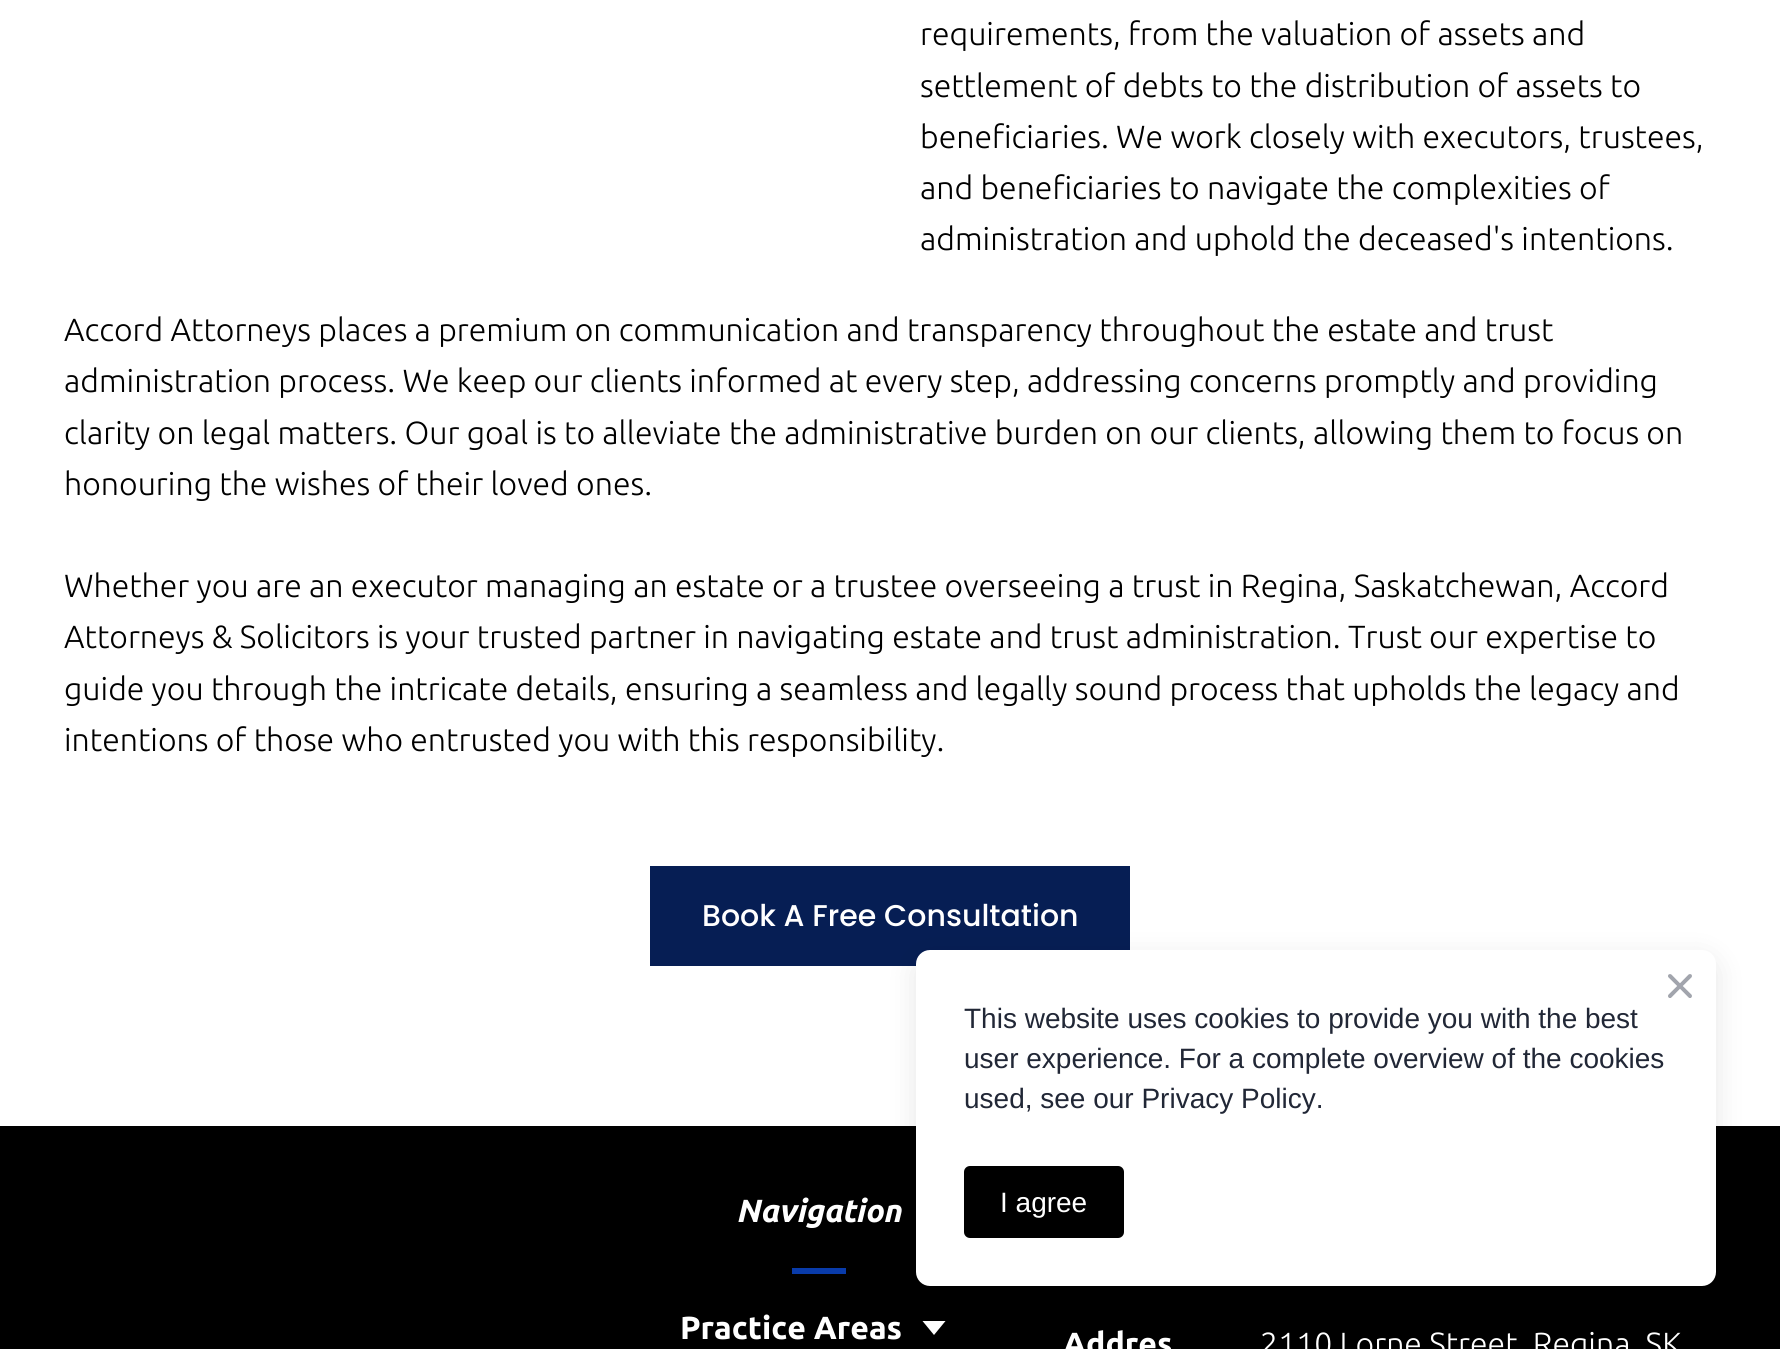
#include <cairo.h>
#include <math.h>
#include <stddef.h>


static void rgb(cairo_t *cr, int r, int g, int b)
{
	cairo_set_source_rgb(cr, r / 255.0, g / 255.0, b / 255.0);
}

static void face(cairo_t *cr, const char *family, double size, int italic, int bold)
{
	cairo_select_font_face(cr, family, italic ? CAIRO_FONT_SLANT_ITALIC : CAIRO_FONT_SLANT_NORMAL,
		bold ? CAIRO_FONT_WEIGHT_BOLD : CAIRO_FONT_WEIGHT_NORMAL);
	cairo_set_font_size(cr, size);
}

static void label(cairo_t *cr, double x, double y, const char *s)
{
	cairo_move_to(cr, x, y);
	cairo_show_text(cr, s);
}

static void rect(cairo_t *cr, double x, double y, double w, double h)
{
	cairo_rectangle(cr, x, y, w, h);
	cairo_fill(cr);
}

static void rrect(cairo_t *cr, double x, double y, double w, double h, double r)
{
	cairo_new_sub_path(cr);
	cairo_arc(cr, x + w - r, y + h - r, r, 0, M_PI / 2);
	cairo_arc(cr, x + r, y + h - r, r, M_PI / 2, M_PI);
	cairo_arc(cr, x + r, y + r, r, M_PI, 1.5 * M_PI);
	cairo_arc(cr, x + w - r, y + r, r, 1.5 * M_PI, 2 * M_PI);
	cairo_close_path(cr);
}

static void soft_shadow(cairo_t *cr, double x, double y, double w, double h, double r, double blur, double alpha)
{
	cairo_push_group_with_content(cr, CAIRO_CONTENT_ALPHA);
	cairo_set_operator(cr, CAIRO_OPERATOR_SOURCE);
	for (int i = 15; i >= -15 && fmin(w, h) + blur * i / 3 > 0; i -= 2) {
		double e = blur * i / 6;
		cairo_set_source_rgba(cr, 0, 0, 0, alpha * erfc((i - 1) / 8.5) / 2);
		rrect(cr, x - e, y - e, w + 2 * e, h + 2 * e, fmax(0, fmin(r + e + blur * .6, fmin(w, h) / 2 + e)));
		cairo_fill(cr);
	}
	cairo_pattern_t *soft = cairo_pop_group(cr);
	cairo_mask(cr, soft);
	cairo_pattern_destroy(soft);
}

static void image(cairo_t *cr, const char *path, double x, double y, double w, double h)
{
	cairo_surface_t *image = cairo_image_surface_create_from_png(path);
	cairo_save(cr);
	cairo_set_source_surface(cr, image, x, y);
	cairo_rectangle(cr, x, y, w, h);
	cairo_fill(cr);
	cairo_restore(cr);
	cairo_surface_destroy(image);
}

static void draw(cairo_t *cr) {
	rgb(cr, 255, 255, 255);
	cairo_paint(cr);
	face(cr, "Ubuntu Light", 32, 0, 0);
	rgb(cr, 0, 0, 0);
	label(cr, 920, 45, "requirements, from the valuation of assets and");
	label(cr, 920, 97, "settlement of debts to the distribution of assets to");
	label(cr, 920, 148, "beneficiaries. We work closely with executors, trustees,");
	label(cr, 920, 199, "and beneficiaries to navigate the complexities of");
	label(cr, 920, 250, "administration and uphold the deceased's intentions.");
	label(cr, 64, 341, "Accord Attorneys places a premium on communication and transparency throughout the estate and trust");
	label(cr, 64, 392, "administration process. We keep our clients informed at every step, addressing concerns promptly and providing");
	label(cr, 64, 444, "clarity on legal matters. Our goal is to alleviate the administrative burden on our clients, allowing them to focus on");
	label(cr, 64, 495, "honouring the wishes of their loved ones.");
	label(cr, 64, 597, "Whether you are an executor managing an estate or a trustee overseeing a trust in Regina, Saskatchewan, Accord");
	label(cr, 64, 648, "Attorneys & Solicitors is your trusted partner in navigating estate and trust administration. Trust our expertise to");
	label(cr, 64, 700, "guide you through the intricate details, ensuring a seamless and legally sound process that upholds the legacy and");
	label(cr, 64, 751, "intentions of those who entrusted you with this responsibility.");
	rgb(cr, 6, 30, 84);
	rect(cr, 650, 866, 480, 100);
	face(cr, "Poppins Medium", 30, 0, 0);
	rgb(cr, 255, 255, 255);
	label(cr, 702, 926, "Book A Free Consultation");
	rgb(cr, 0, 0, 0);
	rect(cr, 0, 1126, 1780, 223);
	face(cr, "Ubuntu", 32, 1, 1);
	rgb(cr, 255, 255, 255);
	label(cr, 736, 1222, "Navigation");
	rgb(cr, 9, 59, 170);
	rect(cr, 792, 1268, 54, 6);
	face(cr, "Ubuntu", 32, 0, 1);
	rgb(cr, 255, 255, 255);
	label(cr, 680, 1339, "Practice Areas");
	cairo_new_path(cr);
	cairo_move_to(cr, 934, 1335);
	cairo_line_to(cr, 945.5, 1321);
	cairo_line_to(cr, 922.5, 1321);
	cairo_close_path(cr);
	cairo_fill(cr);
	label(cr, 1063, 1355, "Addres");
	face(cr, "Ubuntu Light", 32, 0, 0);
	label(cr, 1260, 1355, "2110 Lorne Street, Regina, SK");
	rgb(cr, 0, 0, 0);
	soft_shadow(cr, 916, 958, 800, 336, 14, 14, 0.1);
	rgb(cr, 255, 255, 255);
	rrect(cr, 916, 950, 800, 336, 14);
	cairo_fill(cr);
	image(cr, "image0.png", 1668, 974, 24, 24);
	face(cr, "Liberation Sans", 28, 0, 0);
	rgb(cr, 33, 39, 54);
	label(cr, 964, 1028, "This website uses cookies to provide you with the best");
	label(cr, 964, 1068, "user experience. For a complete overview of the cookies");
	label(cr, 964, 1108, "used, see our Privacy Policy.");
	rgb(cr, 0, 0, 0);
	rrect(cr, 964, 1166, 160, 72, 6);
	cairo_fill(cr);
	rgb(cr, 255, 255, 255);
	label(cr, 1000, 1212, "I agree");
}

int main(void) {
	cairo_surface_t *surface = cairo_image_surface_create(CAIRO_FORMAT_RGB24, 1780, 1349);
	cairo_t *cr = cairo_create(surface);
	cairo_font_options_t *options = cairo_font_options_create();
	cairo_font_options_set_hint_metrics(options, CAIRO_HINT_METRICS_OFF);
	cairo_font_options_set_hint_style(options, CAIRO_HINT_STYLE_NONE);
	cairo_set_font_options(cr, options);
	cairo_set_miter_limit(cr, 4);
	draw(cr);
	cairo_surface_write_to_png(surface, "render.png");
	cairo_font_options_destroy(options);
	cairo_destroy(cr);
	cairo_surface_destroy(surface);
	return 0;
}
